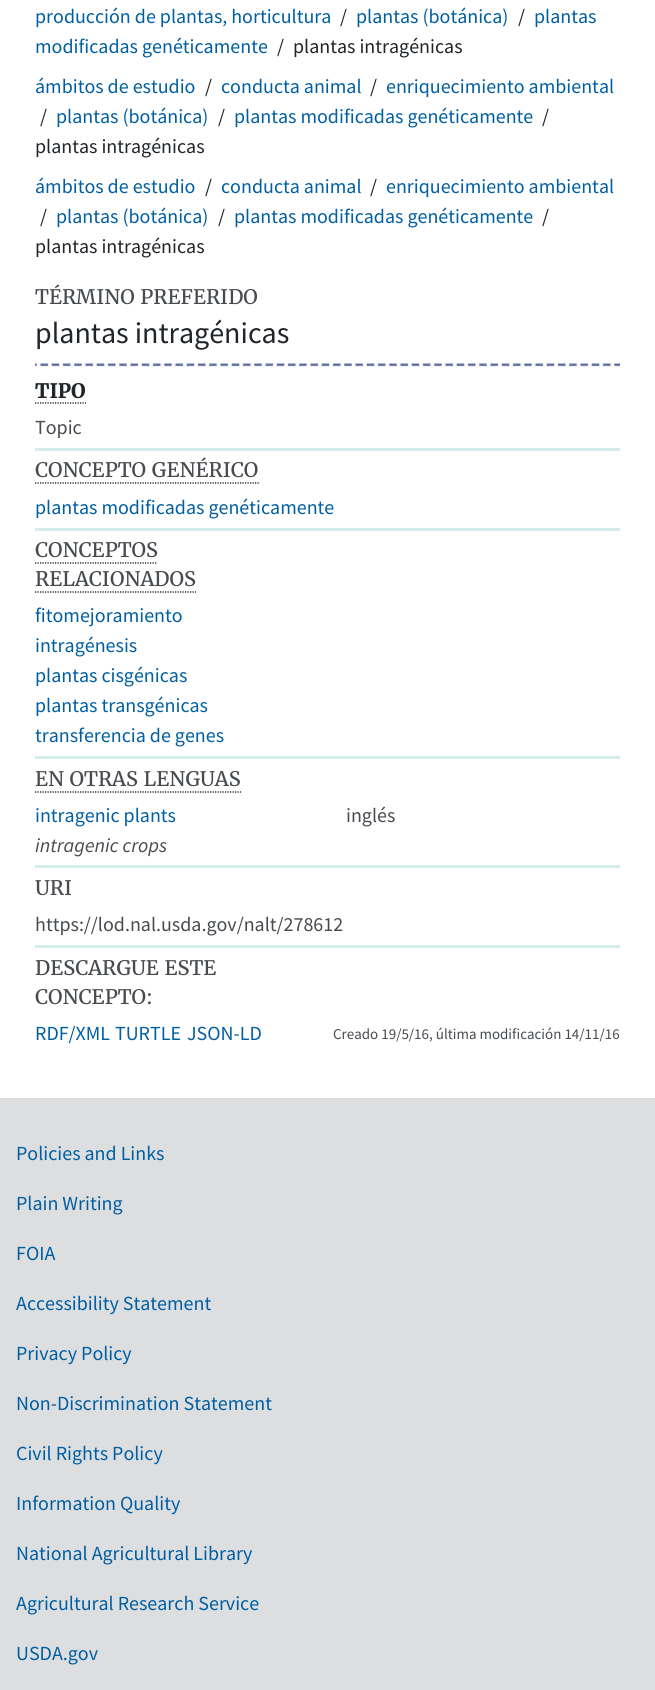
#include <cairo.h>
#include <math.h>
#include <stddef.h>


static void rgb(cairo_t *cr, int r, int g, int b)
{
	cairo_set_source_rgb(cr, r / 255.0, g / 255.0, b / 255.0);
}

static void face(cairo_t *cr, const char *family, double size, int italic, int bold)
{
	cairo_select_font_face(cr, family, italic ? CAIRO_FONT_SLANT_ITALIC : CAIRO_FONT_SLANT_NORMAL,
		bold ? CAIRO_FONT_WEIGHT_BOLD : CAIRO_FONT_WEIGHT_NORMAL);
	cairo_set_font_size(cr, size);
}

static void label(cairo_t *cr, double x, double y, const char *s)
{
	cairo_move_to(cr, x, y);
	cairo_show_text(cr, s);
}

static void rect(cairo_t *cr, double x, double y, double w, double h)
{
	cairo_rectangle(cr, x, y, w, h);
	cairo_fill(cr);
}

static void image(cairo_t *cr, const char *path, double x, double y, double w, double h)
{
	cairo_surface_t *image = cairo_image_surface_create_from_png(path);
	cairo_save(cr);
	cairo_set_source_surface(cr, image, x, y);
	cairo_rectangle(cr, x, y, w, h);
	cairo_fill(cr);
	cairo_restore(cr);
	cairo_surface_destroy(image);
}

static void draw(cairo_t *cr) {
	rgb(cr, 255, 255, 255);
	cairo_paint(cr);
	face(cr, "Source Sans Pro", 20, 0, 0);
	rgb(cr, 0, 94, 162);
	label(cr, 35, 23, "producción de plantas, horticultura");
	rgb(cr, 33, 37, 41);
	label(cr, 340, 23, "/");
	rgb(cr, 0, 94, 162);
	label(cr, 356, 23, "plantas (botánica)");
	rgb(cr, 33, 37, 41);
	label(cr, 518, 23, "/");
	rgb(cr, 0, 94, 162);
	label(cr, 534, 23, "plantas");
	label(cr, 35, 53, "modificadas genéticamente");
	rgb(cr, 33, 37, 41);
	label(cr, 277, 53, "/");
	label(cr, 293, 53, "plantas intragénicas");
	rgb(cr, 0, 94, 162);
	label(cr, 35, 93, "ámbitos de estudio");
	rgb(cr, 33, 37, 41);
	label(cr, 205, 93, "/");
	rgb(cr, 0, 94, 162);
	label(cr, 221, 93, "conducta animal");
	rgb(cr, 33, 37, 41);
	label(cr, 370, 93, "/");
	rgb(cr, 0, 94, 162);
	label(cr, 386, 93, "enriquecimiento ambiental");
	rgb(cr, 33, 37, 41);
	label(cr, 40, 123, "/");
	rgb(cr, 0, 94, 162);
	label(cr, 56, 123, "plantas (botánica)");
	rgb(cr, 33, 37, 41);
	label(cr, 218, 123, "/");
	rgb(cr, 0, 94, 162);
	label(cr, 234, 123, "plantas modificadas genéticamente");
	rgb(cr, 33, 37, 41);
	label(cr, 542, 123, "/");
	label(cr, 35, 153, "plantas intragénicas");
	rgb(cr, 0, 94, 162);
	label(cr, 35, 193, "ámbitos de estudio");
	rgb(cr, 33, 37, 41);
	label(cr, 205, 193, "/");
	rgb(cr, 0, 94, 162);
	label(cr, 221, 193, "conducta animal");
	rgb(cr, 33, 37, 41);
	label(cr, 370, 193, "/");
	rgb(cr, 0, 94, 162);
	label(cr, 386, 193, "enriquecimiento ambiental");
	rgb(cr, 33, 37, 41);
	label(cr, 40, 223, "/");
	rgb(cr, 0, 94, 162);
	label(cr, 56, 223, "plantas (botánica)");
	rgb(cr, 33, 37, 41);
	label(cr, 218, 223, "/");
	rgb(cr, 0, 94, 162);
	label(cr, 234, 223, "plantas modificadas genéticamente");
	rgb(cr, 33, 37, 41);
	label(cr, 542, 223, "/");
	label(cr, 35, 253, "plantas intragénicas");
	face(cr, "Merriweather", 20, 0, 0);
	rgb(cr, 71, 75, 79);
	label(cr, 35, 304, "TÉRMINO PREFERIDO");
	face(cr, "Source Sans Pro", 30, 0, 0);
	rgb(cr, 33, 37, 41);
	label(cr, 35, 343, "plantas intragénicas");
	image(cr, "image0.png", 35, 363, 585, 4);
	face(cr, "Merriweather", 20, 0, 1);
	label(cr, 35, 398, "TIPO");
	cairo_new_path(cr);
	cairo_move_to(cr, 35, 403);
	cairo_line_to(cr, 86, 403);
	rgb(cr, 0, 0, 0);
	cairo_set_line_width(cr, 1.2);
	cairo_set_dash(cr, (double[]){1.25, 1.25}, 2, 0);
	cairo_stroke(cr);
	rgb(cr, 212, 237, 235);
	rect(cr, 35, 448, 585, 3);
	face(cr, "Source Sans Pro", 20, 0, 0);
	rgb(cr, 71, 75, 79);
	label(cr, 35, 434, "Topic");
	face(cr, "Merriweather", 20, 0, 0);
	label(cr, 35, 477, "CONCEPTO GENÉRICO");
	cairo_new_path(cr);
	cairo_move_to(cr, 35, 483);
	cairo_line_to(cr, 259, 483);
	rgb(cr, 0, 0, 0);
	cairo_stroke(cr);
	rgb(cr, 212, 237, 235);
	rect(cr, 35, 528, 585, 3);
	face(cr, "Source Sans Pro", 20, 0, 0);
	rgb(cr, 0, 94, 162);
	label(cr, 35, 514, "plantas modificadas genéticamente");
	face(cr, "Merriweather", 20, 0, 0);
	rgb(cr, 71, 75, 79);
	label(cr, 35, 557, "CONCEPTOS");
	cairo_new_path(cr);
	cairo_move_to(cr, 35, 563);
	cairo_line_to(cr, 157.5, 563);
	rgb(cr, 0, 0, 0);
	cairo_stroke(cr);
	rgb(cr, 71, 75, 79);
	label(cr, 35, 586, "RELACIONADOS");
	cairo_new_path(cr);
	cairo_move_to(cr, 35, 592);
	cairo_line_to(cr, 196, 592);
	rgb(cr, 0, 0, 0);
	cairo_stroke(cr);
	rgb(cr, 212, 237, 235);
	rect(cr, 35, 756, 585, 3);
	face(cr, "Source Sans Pro", 20, 0, 0);
	rgb(cr, 0, 94, 162);
	label(cr, 35, 622, "fitomejoramiento");
	label(cr, 35, 652, "intragénesis");
	label(cr, 35, 682, "plantas cisgénicas");
	label(cr, 35, 712, "plantas transgénicas");
	label(cr, 35, 742, "transferencia de genes");
	face(cr, "Merriweather", 20, 0, 0);
	rgb(cr, 71, 75, 79);
	label(cr, 35, 786, "EN OTRAS LENGUAS");
	cairo_new_path(cr);
	cairo_move_to(cr, 35, 792);
	cairo_line_to(cr, 241, 792);
	rgb(cr, 0, 0, 0);
	cairo_stroke(cr);
	rgb(cr, 212, 237, 235);
	rect(cr, 35, 865, 585, 3);
	face(cr, "Source Sans Pro", 20, 0, 0);
	rgb(cr, 0, 94, 162);
	label(cr, 35, 822, "intragenic plants");
	rgb(cr, 71, 75, 79);
	label(cr, 346, 822, "inglés");
	face(cr, "Source Sans Pro", 20, 1, 0);
	label(cr, 35, 852, "intragenic crops");
	face(cr, "Merriweather", 20, 0, 0);
	label(cr, 35, 895, "URI");
	rgb(cr, 212, 237, 235);
	rect(cr, 35, 945, 585, 3);
	face(cr, "Source Sans Pro", 20, 0, 0);
	rgb(cr, 71, 75, 79);
	label(cr, 35, 931, "https://lod.nal.usda.gov/nalt/278612");
	face(cr, "Merriweather", 20, 0, 0);
	label(cr, 35, 975, "DESCARGUE ESTE");
	label(cr, 35, 1004, "CONCEPTO:");
	face(cr, "Source Sans Pro", 20, 0, 0);
	rgb(cr, 0, 94, 162);
	label(cr, 35, 1040, "RDF/XML");
	label(cr, 115, 1040, "TURTLE");
	label(cr, 187, 1040, "JSON-LD");
	face(cr, "Source Sans Pro", 15, 0, 0);
	rgb(cr, 71, 75, 79);
	label(cr, 333, 1039, "Creado 19/5/16, última modificación 14/11/16");
	rgb(cr, 220, 222, 224);
	rect(cr, 0, 1098, 655, 592);
	face(cr, "Source Sans Pro", 20, 0, 0);
	rgb(cr, 0, 94, 162);
	label(cr, 16, 1160, "Policies and Links");
	label(cr, 16, 1210, "Plain Writing");
	label(cr, 16, 1260, "FOIA");
	label(cr, 16, 1310, "Accessibility Statement");
	label(cr, 16, 1360, "Privacy Policy");
	label(cr, 16, 1410, "Non-Discrimination Statement");
	label(cr, 16, 1460, "Civil Rights Policy");
	label(cr, 16, 1510, "Information Quality");
	label(cr, 16, 1560, "National Agricultural Library");
	label(cr, 16, 1610, "Agricultural Research Service");
	label(cr, 16, 1660, "USDA.gov");
}

int main(void) {
	cairo_surface_t *surface = cairo_image_surface_create(CAIRO_FORMAT_RGB24, 655, 1690);
	cairo_t *cr = cairo_create(surface);
	cairo_font_options_t *options = cairo_font_options_create();
	cairo_font_options_set_hint_metrics(options, CAIRO_HINT_METRICS_OFF);
	cairo_font_options_set_hint_style(options, CAIRO_HINT_STYLE_NONE);
	cairo_set_font_options(cr, options);
	cairo_set_miter_limit(cr, 4);
	draw(cr);
	cairo_surface_write_to_png(surface, "render.png");
	cairo_font_options_destroy(options);
	cairo_destroy(cr);
	cairo_surface_destroy(surface);
	return 0;
}
